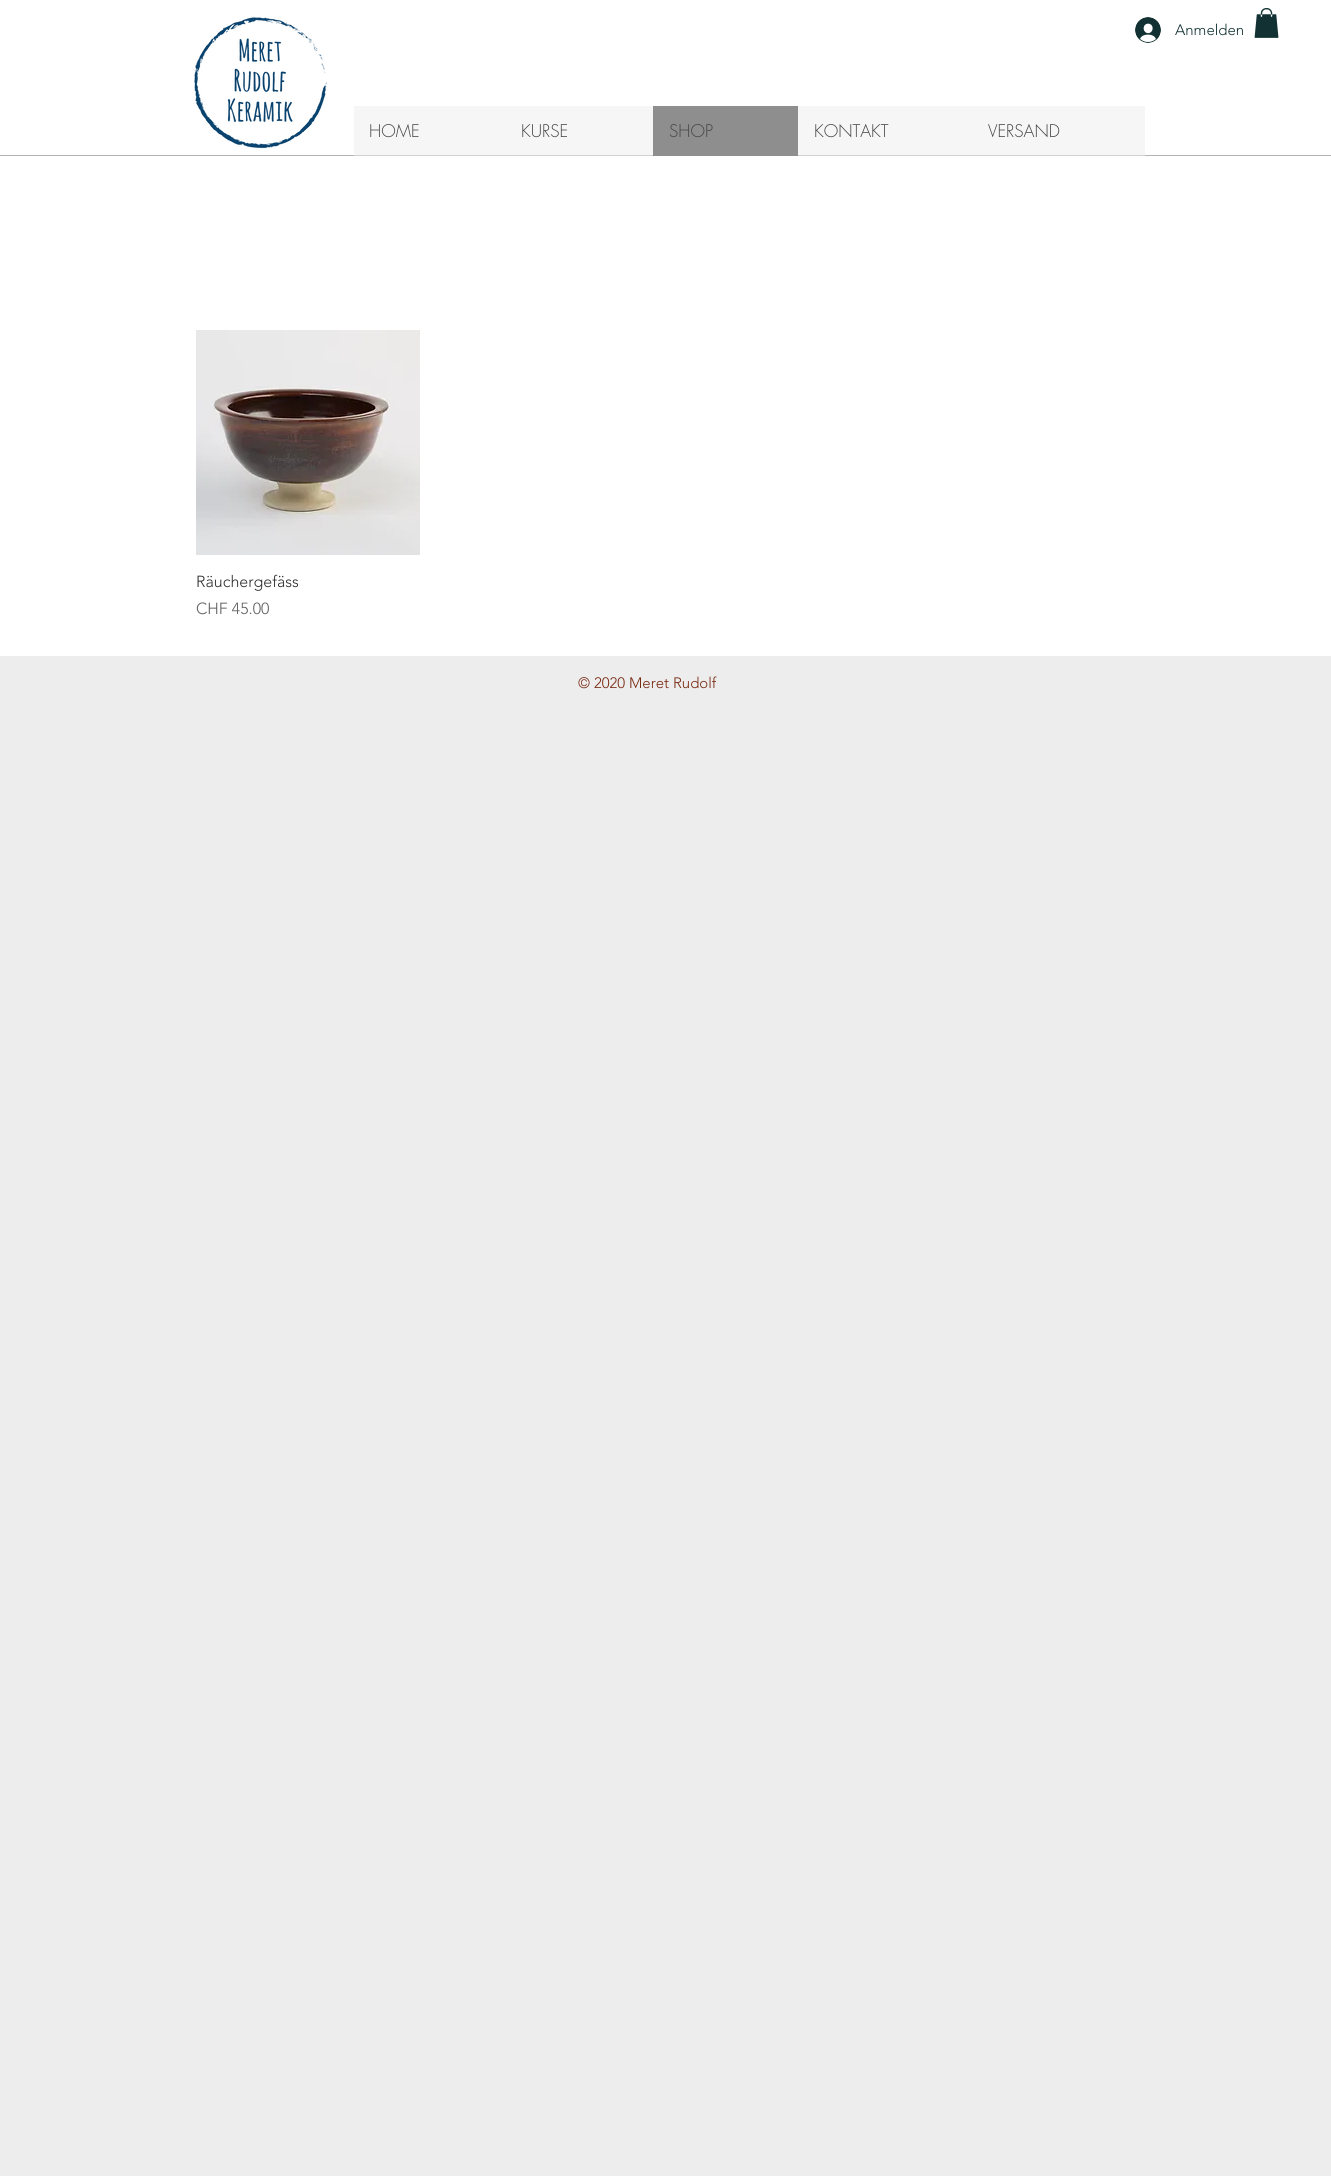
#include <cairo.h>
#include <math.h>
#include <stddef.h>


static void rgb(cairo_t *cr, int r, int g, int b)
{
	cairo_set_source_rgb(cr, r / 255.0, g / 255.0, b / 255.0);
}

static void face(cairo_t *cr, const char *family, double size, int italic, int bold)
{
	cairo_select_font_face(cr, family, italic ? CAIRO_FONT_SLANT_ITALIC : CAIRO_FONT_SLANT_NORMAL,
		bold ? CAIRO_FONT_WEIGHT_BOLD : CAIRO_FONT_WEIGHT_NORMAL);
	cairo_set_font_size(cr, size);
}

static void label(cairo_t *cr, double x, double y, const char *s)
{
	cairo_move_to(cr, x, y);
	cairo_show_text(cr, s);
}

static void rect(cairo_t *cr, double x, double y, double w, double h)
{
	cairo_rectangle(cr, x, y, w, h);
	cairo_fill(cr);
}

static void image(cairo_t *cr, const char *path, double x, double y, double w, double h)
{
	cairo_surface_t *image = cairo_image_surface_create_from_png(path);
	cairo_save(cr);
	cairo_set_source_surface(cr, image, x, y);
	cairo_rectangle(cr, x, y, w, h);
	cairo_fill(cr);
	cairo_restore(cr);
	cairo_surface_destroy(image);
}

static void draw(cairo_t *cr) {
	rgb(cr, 237, 237, 238);
	cairo_paint(cr);
	rgb(cr, 255, 255, 255);
	rect(cr, 0, 0, 1331, 155);
	image(cr, "image0.png", 1135, 17, 26, 26);
	face(cr, "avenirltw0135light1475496 Light", 15, 0, 0);
	rgb(cr, 18, 49, 50);
	label(cr, 1175, 35, "Anmelden");
	image(cr, "image1.png", 1254, 8, 25, 30);
	rgb(cr, 246, 246, 247);
	rect(cr, 354, 106, 791, 49);
	rgb(cr, 180, 180, 180);
	rect(cr, 0, 155, 1331, 1);
	rgb(cr, 209, 209, 209);
	rect(cr, 354, 155, 791, 1);
	image(cr, "image2.png", 194, 17, 134, 132);
	face(cr, "futura Light", 17, 0, 0);
	rgb(cr, 68, 68, 68);
	label(cr, 369, 137, "HOME");
	label(cr, 521, 137, "KURSE");
	rgb(cr, 142, 142, 143);
	rect(cr, 653, 106, 145, 50);
	rgb(cr, 68, 68, 68);
	label(cr, 669, 137, "SHOP");
	label(cr, 814, 137, "KONTAKT");
	label(cr, 988, 137, "VERSAND");
	rgb(cr, 255, 255, 255);
	rect(cr, 0, 156, 1331, 500);
	image(cr, "image3.png", 196, 330, 224, 225);
	face(cr, "avenirltw0135light1475496 Light", 16, 0, 0);
	rgb(cr, 47, 47, 48);
	label(cr, 196, 587, "Räuchergefäss");
	rgb(cr, 95, 95, 95);
	label(cr, 196, 614, "CHF 45.00");
	face(cr, "avenirltw0135light1475496 Light", 15, 0, 0);
	rgb(cr, 119, 40, 15);
	label(cr, 578, 688, "© 2020 Meret Rudolf");
}

int main(void) {
	cairo_surface_t *surface = cairo_image_surface_create(CAIRO_FORMAT_RGB24, 1331, 2176);
	cairo_t *cr = cairo_create(surface);
	cairo_font_options_t *options = cairo_font_options_create();
	cairo_font_options_set_hint_metrics(options, CAIRO_HINT_METRICS_OFF);
	cairo_font_options_set_hint_style(options, CAIRO_HINT_STYLE_NONE);
	cairo_set_font_options(cr, options);
	cairo_set_miter_limit(cr, 4);
	draw(cr);
	cairo_surface_write_to_png(surface, "render.png");
	cairo_font_options_destroy(options);
	cairo_destroy(cr);
	cairo_surface_destroy(surface);
	return 0;
}
